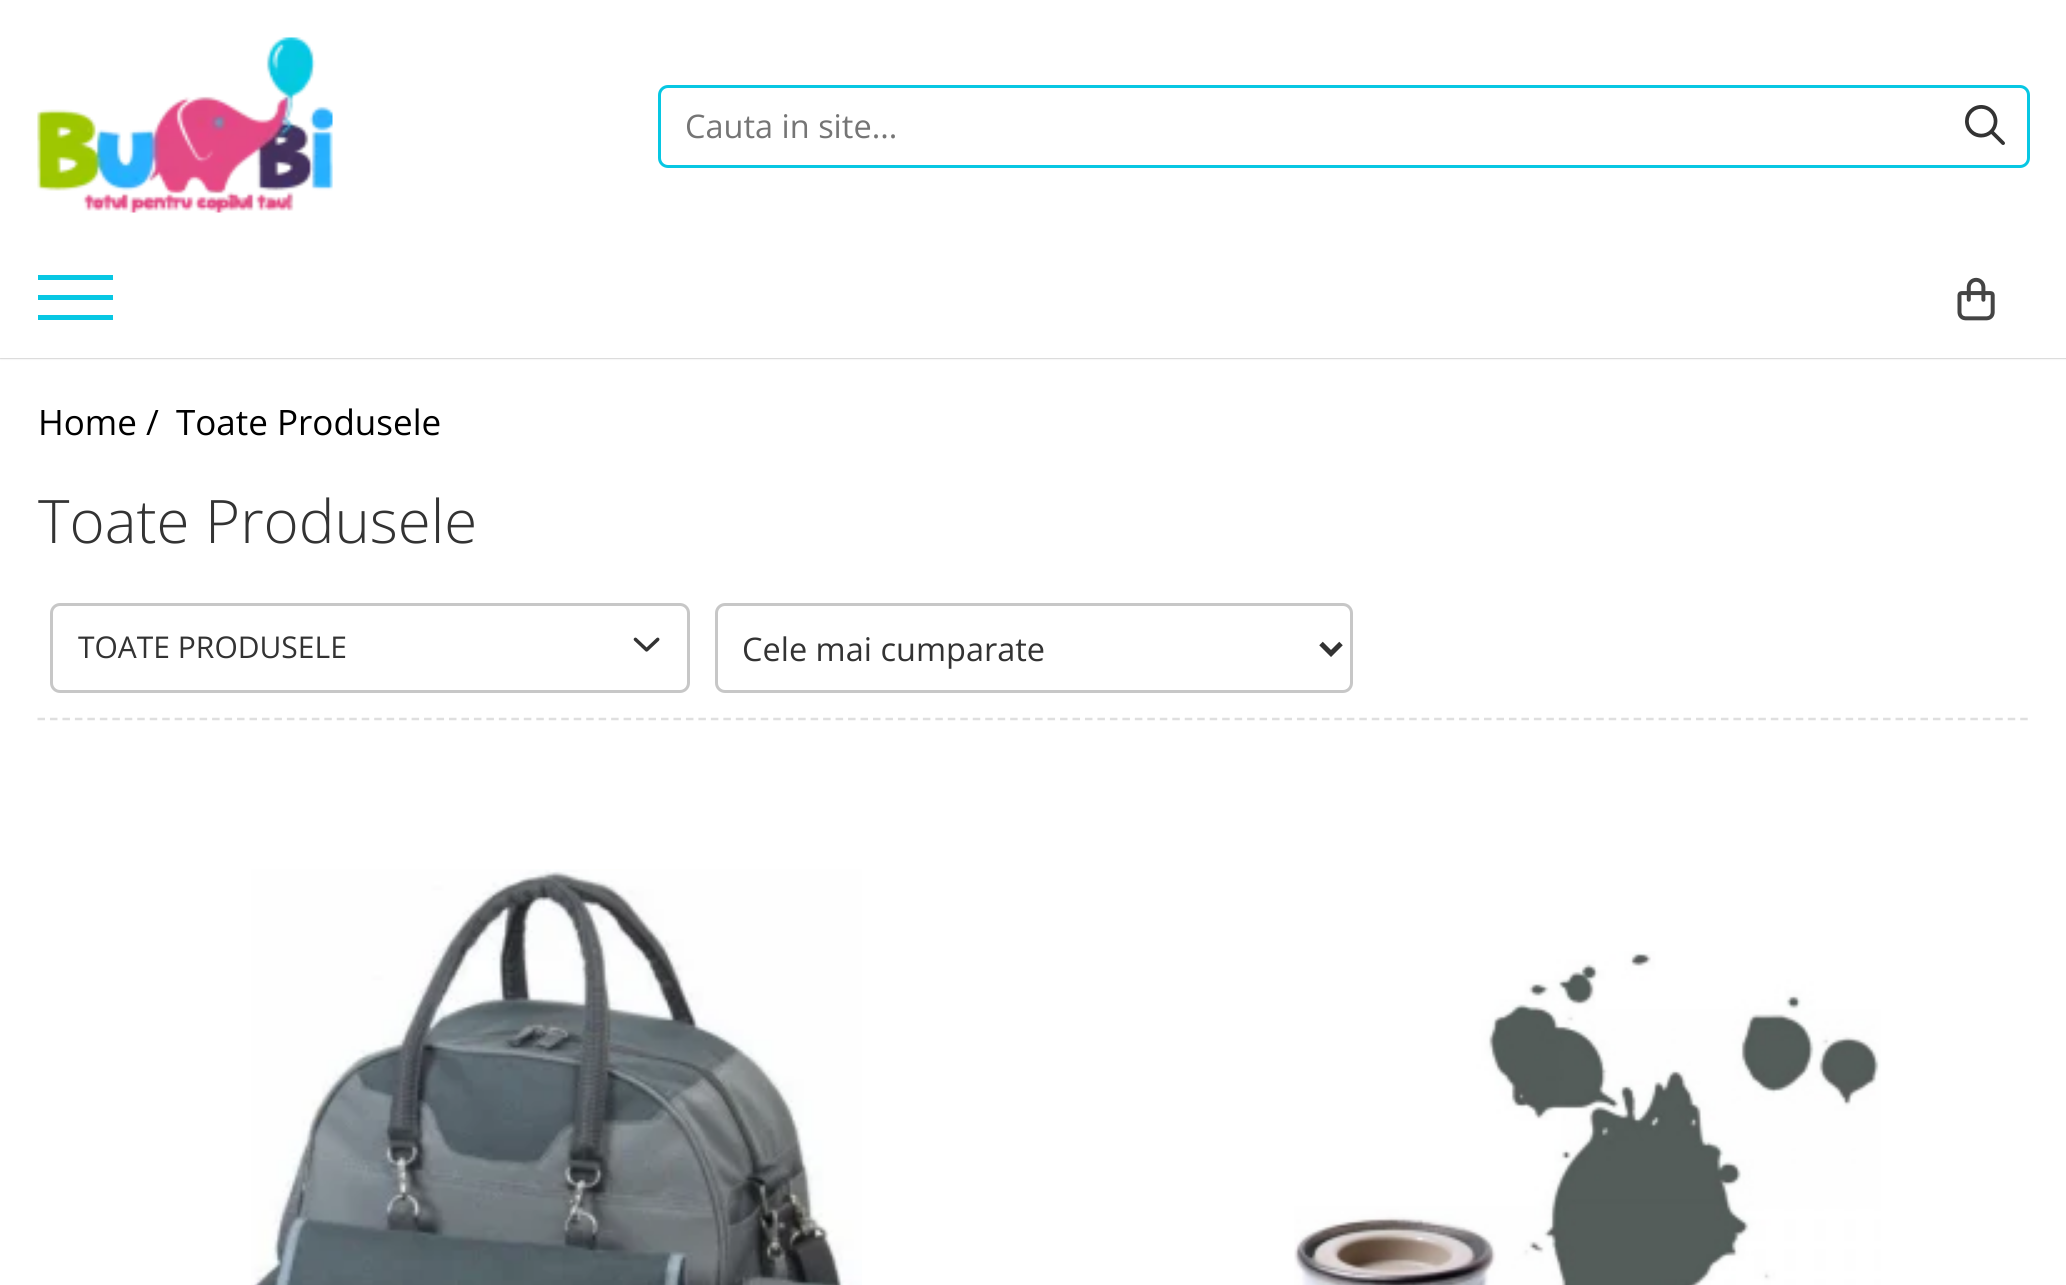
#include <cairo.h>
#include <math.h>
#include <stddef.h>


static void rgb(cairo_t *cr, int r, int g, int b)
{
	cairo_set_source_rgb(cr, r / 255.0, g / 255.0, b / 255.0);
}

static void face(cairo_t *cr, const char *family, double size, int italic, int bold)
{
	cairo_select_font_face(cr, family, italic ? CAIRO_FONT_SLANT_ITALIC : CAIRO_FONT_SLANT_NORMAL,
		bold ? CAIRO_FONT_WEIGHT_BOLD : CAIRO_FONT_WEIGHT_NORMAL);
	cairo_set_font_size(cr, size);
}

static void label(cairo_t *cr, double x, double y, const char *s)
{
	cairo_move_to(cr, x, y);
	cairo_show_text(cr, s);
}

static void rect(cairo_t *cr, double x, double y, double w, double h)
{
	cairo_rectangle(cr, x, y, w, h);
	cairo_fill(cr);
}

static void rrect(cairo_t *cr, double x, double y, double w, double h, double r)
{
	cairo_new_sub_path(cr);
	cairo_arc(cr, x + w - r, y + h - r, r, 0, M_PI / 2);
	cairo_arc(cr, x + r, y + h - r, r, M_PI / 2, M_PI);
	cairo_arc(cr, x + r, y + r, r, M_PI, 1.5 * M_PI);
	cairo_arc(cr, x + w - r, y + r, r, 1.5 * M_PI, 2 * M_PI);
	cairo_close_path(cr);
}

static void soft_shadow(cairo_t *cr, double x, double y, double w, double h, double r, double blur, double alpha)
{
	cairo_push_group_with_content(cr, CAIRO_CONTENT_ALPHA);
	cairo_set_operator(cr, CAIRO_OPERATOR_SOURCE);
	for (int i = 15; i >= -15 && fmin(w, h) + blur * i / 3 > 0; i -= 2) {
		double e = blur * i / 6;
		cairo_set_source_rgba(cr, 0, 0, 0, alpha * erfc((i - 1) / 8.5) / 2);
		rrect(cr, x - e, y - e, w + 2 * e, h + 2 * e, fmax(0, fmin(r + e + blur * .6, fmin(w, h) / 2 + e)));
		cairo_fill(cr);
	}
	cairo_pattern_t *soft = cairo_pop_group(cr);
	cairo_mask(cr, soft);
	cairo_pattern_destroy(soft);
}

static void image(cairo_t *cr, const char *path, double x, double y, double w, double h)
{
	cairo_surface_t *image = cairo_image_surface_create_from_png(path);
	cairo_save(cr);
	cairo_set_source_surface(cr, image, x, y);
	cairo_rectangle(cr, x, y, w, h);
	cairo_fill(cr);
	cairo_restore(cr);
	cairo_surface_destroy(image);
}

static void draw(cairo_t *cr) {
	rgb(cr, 255, 255, 255);
	cairo_paint(cr);
	rgb(cr, 0, 0, 0);
	soft_shadow(cr, 0, 0, 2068, 358, 0, 1, 0.4);
	rgb(cr, 255, 255, 255);
	rect(cr, 0, 0, 2066, 358);
	image(cr, "image0.png", 37, 37, 296, 176);
	rrect(cr, 659.5, 86.5, 1369, 80, 8.5);
	rgb(cr, 7, 199, 227);
	cairo_set_line_width(cr, 3);
	cairo_stroke(cr);
	face(cr, "Open Sans", 32.5, 0, 0);
	rgb(cr, 117, 117, 117);
	label(cr, 685, 138, "Cauta in site...");
	image(cr, "image1.png", 1965, 105, 40, 40);
	rgb(cr, 7, 199, 227);
	rect(cr, 38, 295, 75, 5);
	rect(cr, 38, 275, 75, 5);
	rect(cr, 38, 315, 75, 5);
	image(cr, "image2.png", 1957, 277, 38, 44);
	face(cr, "Open Sans", 35, 0, 0);
	rgb(cr, 0, 0, 0);
	label(cr, 38, 435, "Home /");
	label(cr, 176, 435, "Toate Produsele");
	face(cr, "Open Sans Light", 60, 0, 0);
	rgb(cr, 51, 51, 51);
	label(cr, 38, 543, "Toate Produsele");
	rrect(cr, 51.5, 604.5, 637, 87, 8.5);
	rgb(cr, 199, 199, 199);
	cairo_stroke(cr);
	cairo_save(cr);
	cairo_rectangle(cr, 78, 625, 585, 45);
	cairo_clip(cr);
	face(cr, "Open Sans", 30, 0, 0);
	rgb(cr, 51, 51, 51);
	label(cr, 78, 658, "TOATE PRODUSELE");
	cairo_restore(cr);
	image(cr, "image3.png", 633, 637, 27, 15);
	rrect(cr, 716.5, 604.5, 635, 87, 8.5);
	cairo_stroke(cr);
	cairo_new_path(cr);
	cairo_move_to(cr, 1321, 643.5);
	cairo_line_to(cr, 1331, 653.5);
	cairo_line_to(cr, 1341, 643.5);
	rgb(cr, 51, 51, 51);
	cairo_set_line_width(cr, 5);
	cairo_stroke(cr);
	face(cr, "Open Sans", 32.5, 0, 0);
	label(cr, 742, 661, "Cele mai cumparate");
	cairo_new_path(cr);
	cairo_move_to(cr, 37.5, 719);
	cairo_line_to(cr, 2030, 719);
	rgb(cr, 223, 223, 223);
	cairo_set_line_width(cr, 2.5);
	cairo_set_dash(cr, (double[]){7.5, 4.97}, 2, 0);
	cairo_stroke(cr);
	image(cr, "image4.png", 251, 869, 611, 416);
	image(cr, "image5.png", 1294, 951, 587, 334);
}

int main(void) {
	cairo_surface_t *surface = cairo_image_surface_create(CAIRO_FORMAT_RGB24, 2066, 1285);
	cairo_t *cr = cairo_create(surface);
	cairo_font_options_t *options = cairo_font_options_create();
	cairo_font_options_set_hint_metrics(options, CAIRO_HINT_METRICS_OFF);
	cairo_font_options_set_hint_style(options, CAIRO_HINT_STYLE_NONE);
	cairo_set_font_options(cr, options);
	cairo_set_miter_limit(cr, 4);
	draw(cr);
	cairo_surface_write_to_png(surface, "render.png");
	cairo_font_options_destroy(options);
	cairo_destroy(cr);
	cairo_surface_destroy(surface);
	return 0;
}
